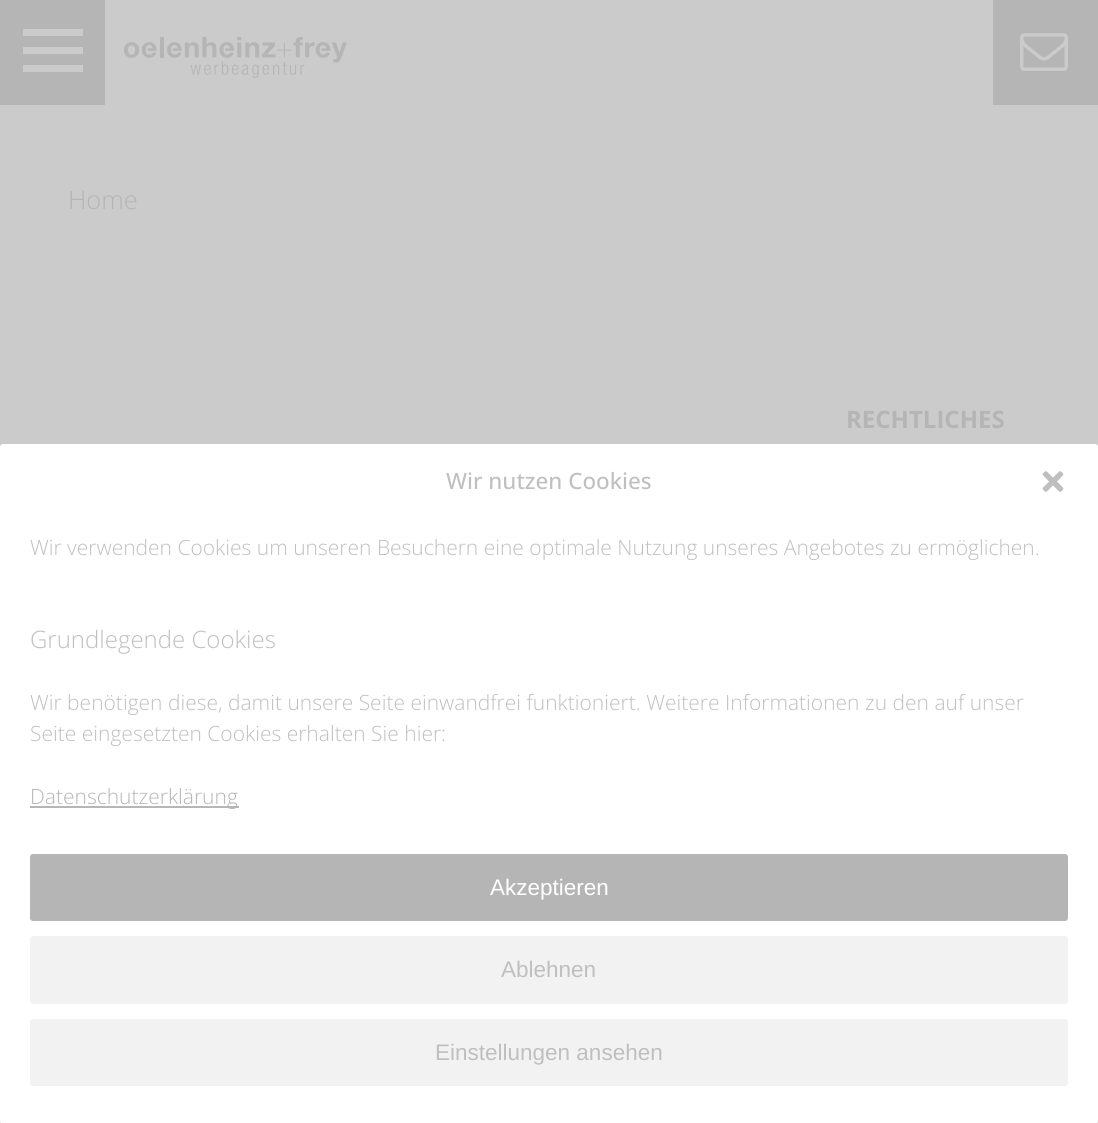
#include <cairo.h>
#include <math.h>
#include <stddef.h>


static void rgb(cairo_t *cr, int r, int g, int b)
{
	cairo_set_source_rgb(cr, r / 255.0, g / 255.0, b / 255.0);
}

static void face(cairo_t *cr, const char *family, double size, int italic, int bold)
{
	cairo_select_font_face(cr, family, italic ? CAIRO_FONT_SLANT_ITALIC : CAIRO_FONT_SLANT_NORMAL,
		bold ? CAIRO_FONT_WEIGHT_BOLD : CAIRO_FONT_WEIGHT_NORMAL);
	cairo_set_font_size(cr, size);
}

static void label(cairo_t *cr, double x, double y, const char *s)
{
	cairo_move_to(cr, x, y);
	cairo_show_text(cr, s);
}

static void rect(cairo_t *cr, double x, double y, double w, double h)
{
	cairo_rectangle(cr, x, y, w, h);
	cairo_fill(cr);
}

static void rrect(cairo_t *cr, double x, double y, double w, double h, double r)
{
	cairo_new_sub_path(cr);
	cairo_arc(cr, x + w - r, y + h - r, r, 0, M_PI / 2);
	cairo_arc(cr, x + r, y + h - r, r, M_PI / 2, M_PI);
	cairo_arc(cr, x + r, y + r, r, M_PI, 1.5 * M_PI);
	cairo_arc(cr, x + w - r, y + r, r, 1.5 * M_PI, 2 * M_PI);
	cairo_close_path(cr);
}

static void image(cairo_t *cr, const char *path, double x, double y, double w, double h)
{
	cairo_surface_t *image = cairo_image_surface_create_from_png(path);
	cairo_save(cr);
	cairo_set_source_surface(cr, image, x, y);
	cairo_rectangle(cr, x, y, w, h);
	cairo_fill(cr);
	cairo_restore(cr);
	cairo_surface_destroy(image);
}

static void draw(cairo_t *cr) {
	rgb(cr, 203, 203, 203);
	cairo_paint(cr);
	rgb(cr, 181, 181, 181);
	rect(cr, 0, 0, 105, 105);
	rgb(cr, 203, 203, 203);
	rect(cr, 23, 47, 60, 7);
	rect(cr, 23, 29, 60, 7);
	rect(cr, 23, 65, 60, 7);
	image(cr, "image0.png", 123, 36, 224, 42);
	rgb(cr, 181, 181, 181);
	rect(cr, 993, 0, 105, 105);
	image(cr, "image1.png", 1020, 33, 48, 38);
	face(cr, "Open Sans Light", 25.5, 0, 0);
	label(cr, 68, 209, "Home");
	face(cr, "Open Sans", 24, 0, 1);
	label(cr, 846, 428, "RECHTLICHES");
	rgb(cr, 255, 255, 255);
	rrect(cr, 0, 444, 1098, 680, 3);
	cairo_fill(cr);
	face(cr, "Open Sans Medium", 22.5, 0, 0);
	rgb(cr, 191, 191, 191);
	label(cr, 446, 489, "Wir nutzen Cookies");
	image(cr, "image2.png", 1042, 471, 22, 21);
	face(cr, "Open Sans Light", 21, 0, 0);
	label(cr, 30, 555, "Wir verwenden Cookies um unseren Besuchern eine optimale Nutzung unseres Angebotes zu ermöglichen.");
	face(cr, "Open Sans Light", 24, 0, 0);
	label(cr, 30, 648, "Grundlegende Cookies");
	face(cr, "Open Sans Light", 21, 0, 0);
	label(cr, 30, 710, "Wir benötigen diese, damit unsere Seite einwandfrei funktioniert. Weitere Informationen zu den auf unser");
	label(cr, 30, 741, "Seite eingesetzten Cookies erhalten Sie hier:");
	rgb(cr, 184, 181, 181);
	rect(cr, 30, 806, 209, 2);
	rgb(cr, 181, 181, 181);
	label(cr, 30, 804, "Datenschutzerklärung");
	rrect(cr, 31, 855, 1036, 65, 2);
	cairo_fill_preserve(cr);
	cairo_stroke(cr);
	face(cr, "Liberation Sans", 22.5, 0, 0);
	rgb(cr, 255, 255, 255);
	label(cr, 490, 895, "Akzeptieren");
	rgb(cr, 242, 242, 242);
	rrect(cr, 31, 937, 1036, 66, 2);
	cairo_fill_preserve(cr);
	cairo_stroke(cr);
	rgb(cr, 191, 191, 191);
	label(cr, 501, 977, "Ablehnen");
	rgb(cr, 242, 242, 242);
	rrect(cr, 31, 1020, 1036, 65, 2);
	cairo_fill_preserve(cr);
	cairo_stroke(cr);
	rgb(cr, 191, 191, 191);
	label(cr, 435, 1060, "Einstellungen ansehen");
}

int main(void) {
	cairo_surface_t *surface = cairo_image_surface_create(CAIRO_FORMAT_RGB24, 1098, 1123);
	cairo_t *cr = cairo_create(surface);
	cairo_font_options_t *options = cairo_font_options_create();
	cairo_font_options_set_hint_metrics(options, CAIRO_HINT_METRICS_OFF);
	cairo_font_options_set_hint_style(options, CAIRO_HINT_STYLE_NONE);
	cairo_set_font_options(cr, options);
	cairo_set_miter_limit(cr, 4);
	draw(cr);
	cairo_surface_write_to_png(surface, "render.png");
	cairo_font_options_destroy(options);
	cairo_destroy(cr);
	cairo_surface_destroy(surface);
	return 0;
}
